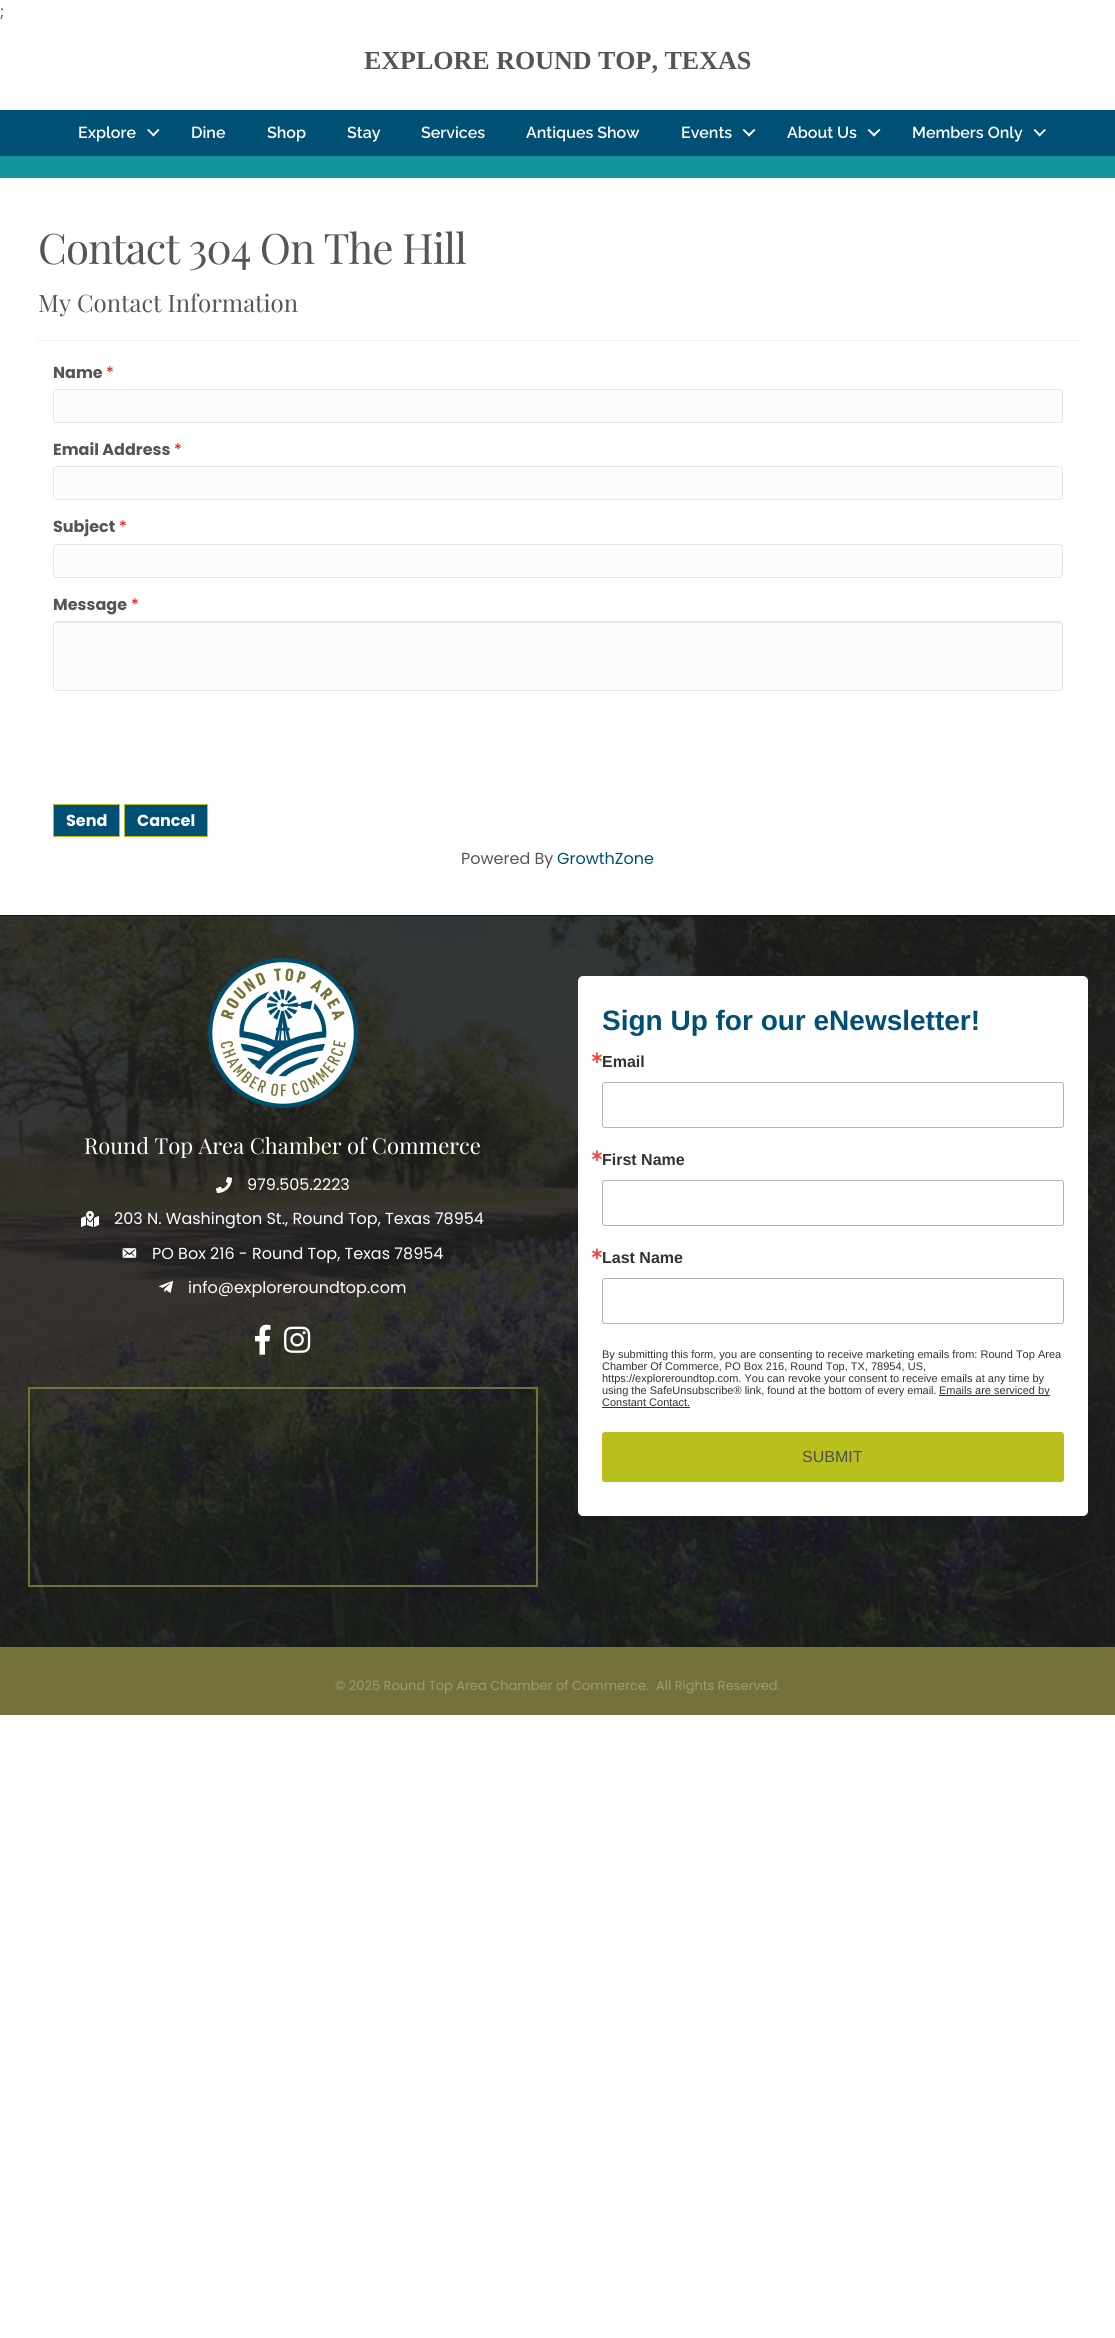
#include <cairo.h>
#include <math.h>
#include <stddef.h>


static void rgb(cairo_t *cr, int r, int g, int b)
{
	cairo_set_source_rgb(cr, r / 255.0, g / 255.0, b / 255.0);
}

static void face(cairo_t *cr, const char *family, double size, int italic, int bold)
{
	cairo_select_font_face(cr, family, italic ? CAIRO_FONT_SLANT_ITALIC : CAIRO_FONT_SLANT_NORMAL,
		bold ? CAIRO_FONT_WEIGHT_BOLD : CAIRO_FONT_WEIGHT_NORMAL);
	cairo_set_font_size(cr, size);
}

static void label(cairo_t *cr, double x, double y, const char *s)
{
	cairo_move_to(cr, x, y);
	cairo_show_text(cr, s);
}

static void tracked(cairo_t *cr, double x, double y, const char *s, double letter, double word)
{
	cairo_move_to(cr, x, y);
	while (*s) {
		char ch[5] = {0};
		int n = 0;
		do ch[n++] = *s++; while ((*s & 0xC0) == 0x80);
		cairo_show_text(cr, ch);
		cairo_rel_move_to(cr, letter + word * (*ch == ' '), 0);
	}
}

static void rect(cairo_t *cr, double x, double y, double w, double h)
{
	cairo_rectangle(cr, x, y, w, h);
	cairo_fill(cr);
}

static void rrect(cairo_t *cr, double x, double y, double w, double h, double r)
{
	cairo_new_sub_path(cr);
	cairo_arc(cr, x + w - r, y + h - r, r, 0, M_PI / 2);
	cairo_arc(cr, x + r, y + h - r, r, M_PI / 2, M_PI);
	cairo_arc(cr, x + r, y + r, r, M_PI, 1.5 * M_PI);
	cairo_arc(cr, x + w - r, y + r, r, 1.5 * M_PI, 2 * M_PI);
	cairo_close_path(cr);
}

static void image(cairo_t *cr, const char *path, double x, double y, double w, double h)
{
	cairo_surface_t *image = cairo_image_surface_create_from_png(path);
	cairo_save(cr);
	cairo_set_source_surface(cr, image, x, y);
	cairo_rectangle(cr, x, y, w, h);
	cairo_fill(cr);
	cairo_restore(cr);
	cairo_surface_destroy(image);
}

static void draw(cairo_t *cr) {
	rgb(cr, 255, 255, 255);
	cairo_paint(cr);
	face(cr, "Poppins", 16, 0, 0);
	rgb(cr, 85, 85, 85);
	label(cr, 0, 17, ";");
	face(cr, "Liberation Serif", 26, 0, 1);
	label(cr, 364, 69, "EXPLORE ROUND TOP, TEXAS");
	rgb(cr, 0, 79, 116);
	rect(cr, 0, 110, 1115, 46);
	face(cr, "Raleway Thin", 16, 0, 0);
	rgb(cr, 255, 255, 255);
	label(cr, 78, 138, "Explore");
	cairo_new_path(cr);
	cairo_move_to(cr, 158, 129);
	cairo_line_to(cr, 159.5, 130);
	cairo_line_to(cr, 153.5, 136.5);
	cairo_line_to(cr, 152, 135);
	cairo_close_path(cr);
	cairo_fill(cr);
	cairo_new_path(cr);
	cairo_move_to(cr, 148.5, 129);
	cairo_line_to(cr, 154.5, 135);
	cairo_line_to(cr, 153.5, 136.5);
	cairo_line_to(cr, 147, 130);
	cairo_close_path(cr);
	cairo_fill(cr);
	label(cr, 191, 138, "Dine");
	label(cr, 267, 138, "Shop");
	label(cr, 347, 138, "Stay");
	label(cr, 421, 138, "Services");
	label(cr, 526, 138, "Antiques Show");
	label(cr, 681, 138, "Events");
	cairo_new_path(cr);
	cairo_move_to(cr, 754, 129);
	cairo_line_to(cr, 755.5, 130);
	cairo_line_to(cr, 749, 136.5);
	cairo_line_to(cr, 747.5, 135);
	cairo_close_path(cr);
	cairo_fill(cr);
	cairo_new_path(cr);
	cairo_move_to(cr, 744, 129);
	cairo_line_to(cr, 750.5, 135);
	cairo_line_to(cr, 749, 136.5);
	cairo_line_to(cr, 742.5, 130);
	cairo_close_path(cr);
	cairo_fill(cr);
	label(cr, 787, 138, "About Us");
	cairo_new_path(cr);
	cairo_move_to(cr, 879, 129);
	cairo_line_to(cr, 880.5, 130);
	cairo_line_to(cr, 874, 136.5);
	cairo_line_to(cr, 872.5, 135);
	cairo_close_path(cr);
	cairo_fill(cr);
	cairo_new_path(cr);
	cairo_move_to(cr, 869, 129);
	cairo_line_to(cr, 875.5, 135);
	cairo_line_to(cr, 874, 136.5);
	cairo_line_to(cr, 867.5, 130);
	cairo_close_path(cr);
	cairo_fill(cr);
	label(cr, 912, 138, "Members Only");
	cairo_new_path(cr);
	cairo_move_to(cr, 1044.5, 129);
	cairo_line_to(cr, 1046, 130);
	cairo_line_to(cr, 1039.5, 136.5);
	cairo_line_to(cr, 1038.5, 135);
	cairo_close_path(cr);
	cairo_fill(cr);
	cairo_new_path(cr);
	cairo_move_to(cr, 1035, 129);
	cairo_line_to(cr, 1041, 135);
	cairo_line_to(cr, 1039.5, 136.5);
	cairo_line_to(cr, 1033.5, 130);
	cairo_close_path(cr);
	cairo_fill(cr);
	rgb(cr, 18, 150, 155);
	rect(cr, 0, 156, 1115, 22);
	face(cr, "Playfair Display", 42, 0, 0);
	rgb(cr, 85, 85, 85);
	tracked(cr, 38, 264, "Contact 304 On The Hill", -1, 0);
	face(cr, "Playfair Display", 24, 0, 0);
	label(cr, 38, 312, "My Contact Information");
	rgb(cr, 238, 238, 238);
	rect(cr, 38, 340, 1040, 1);
	face(cr, "Poppins", 16, 0, 1);
	rgb(cr, 85, 85, 85);
	label(cr, 53, 378, "Name");
	face(cr, "Poppins", 16, 0, 0);
	rgb(cr, 255, 0, 0);
	label(cr, 106, 378, "*");
	rgb(cr, 252, 252, 252);
	rrect(cr, 53.5, 389.5, 1009, 33, 3.5);
	cairo_fill_preserve(cr);
	rgb(cr, 230, 230, 230);
	cairo_set_line_width(cr, 1);
	cairo_stroke(cr);
	face(cr, "Poppins", 16, 0, 1);
	rgb(cr, 85, 85, 85);
	label(cr, 53, 455, "Email Address");
	face(cr, "Poppins", 16, 0, 0);
	rgb(cr, 255, 0, 0);
	label(cr, 174, 455, "*");
	rgb(cr, 252, 252, 252);
	rrect(cr, 53.5, 466.5, 1009, 33, 3.5);
	cairo_fill_preserve(cr);
	rgb(cr, 230, 230, 230);
	cairo_stroke(cr);
	face(cr, "Poppins", 16, 0, 1);
	rgb(cr, 85, 85, 85);
	label(cr, 53, 532, "Subject");
	face(cr, "Poppins", 16, 0, 0);
	rgb(cr, 255, 0, 0);
	label(cr, 119, 532, "*");
	rgb(cr, 252, 252, 252);
	rrect(cr, 53.5, 544.5, 1009, 33, 3.5);
	cairo_fill_preserve(cr);
	rgb(cr, 230, 230, 230);
	cairo_stroke(cr);
	face(cr, "Poppins", 16, 0, 1);
	rgb(cr, 85, 85, 85);
	label(cr, 53, 610, "Message");
	face(cr, "Poppins", 16, 0, 0);
	rgb(cr, 255, 0, 0);
	label(cr, 131, 610, "*");
	rgb(cr, 252, 252, 252);
	rrect(cr, 53, 621, 1010, 70, 4);
	cairo_fill(cr);
	rgb(cr, 233, 233, 233);
	cairo_new_path(cr);
	cairo_move_to(cr, 57, 623);
	cairo_line_to(cr, 1059, 623);
	cairo_curve_to(cr, 1061, 623, 1062, 624, 1062, 626);
	cairo_curve_to(cr, 1062, 624, 1061, 622, 1059, 622);
	cairo_line_to(cr, 57, 622);
	cairo_curve_to(cr, 55, 622, 54, 624, 54, 626);
	cairo_curve_to(cr, 54, 624, 55, 623, 57, 623);
	cairo_close_path(cr);
	cairo_fill(cr);
	rrect(cr, 53.5, 621.5, 1009, 69, 3.5);
	rgb(cr, 230, 230, 230);
	cairo_stroke(cr);
	rgb(cr, 0, 79, 116);
	cairo_rectangle(cr, 53.5, 804.5, 66, 32);
	cairo_fill_preserve(cr);
	rgb(cr, 184, 193, 28);
	cairo_stroke(cr);
	face(cr, "Poppins", 16, 0, 1);
	rgb(cr, 255, 255, 255);
	label(cr, 66, 826, "Send");
	rgb(cr, 0, 79, 116);
	cairo_rectangle(cr, 124.5, 804.5, 83, 32);
	cairo_fill_preserve(cr);
	rgb(cr, 184, 193, 28);
	cairo_stroke(cr);
	rgb(cr, 255, 255, 255);
	label(cr, 137, 826, "Cancel");
	face(cr, "Poppins", 16, 0, 0);
	rgb(cr, 85, 85, 85);
	label(cr, 461, 864, "Powered By");
	rgb(cr, 0, 79, 116);
	label(cr, 557, 864, "GrowthZone");
	image(cr, "image0.png", 0, 916, 1115, 731);
	rgb(cr, 5, 22, 34);
	rect(cr, 0, 915, 1115, 1);
	image(cr, "image1.png", 208, 958, 150, 150);
	face(cr, "Playfair Display", 22, 0, 0);
	rgb(cr, 255, 255, 255);
	label(cr, 84, 1154, "Round Top Area Chamber of Commerce");
	image(cr, "image2.png", 216, 1177, 16, 16);
	face(cr, "Poppins", 16, 0, 0);
	label(cr, 247, 1190, "979.505.2223");
	image(cr, "image3.png", 81, 1211, 18, 16);
	label(cr, 114, 1224, "203 N. Washington St., Round Top, Texas 78954");
	image(cr, "image4.png", 122, 1248, 15, 10);
	label(cr, 152, 1259, "PO Box 216 - Round Top, Texas 78954");
	image(cr, "image5.png", 159, 1281, 14, 12);
	label(cr, 188, 1293, "info@exploreroundtop.com");
	image(cr, "image6.png", 255, 1324, 16, 31);
	image(cr, "image7.png", 284, 1326, 27, 27);
	cairo_rectangle(cr, 29, 1388, 508, 198);
	rgb(cr, 116, 114, 58);
	cairo_set_line_width(cr, 2);
	cairo_stroke(cr);
	rgb(cr, 255, 255, 255);
	rrect(cr, 578, 976, 510, 540, 5);
	cairo_fill(cr);
	face(cr, "Liberation Sans", 28, 0, 1);
	rgb(cr, 0, 79, 116);
	label(cr, 602, 1030, "Sign Up for our eNewsletter!");
	face(cr, "DejaVu Sans", 16, 0, 1);
	rgb(cr, 245, 70, 59);
	label(cr, 590, 1063, "∗");
	face(cr, "Liberation Sans", 16, 0, 1);
	rgb(cr, 50, 50, 50);
	label(cr, 602, 1067, "Email");
	rrect(cr, 602.5, 1082.5, 461, 45, 2.5);
	rgb(cr, 176, 182, 187);
	cairo_set_line_width(cr, 1);
	cairo_stroke(cr);
	face(cr, "DejaVu Sans", 16, 0, 1);
	rgb(cr, 245, 70, 59);
	label(cr, 590, 1161, "∗");
	face(cr, "Liberation Sans", 16, 0, 1);
	rgb(cr, 50, 50, 50);
	label(cr, 602, 1165, "First Name");
	rrect(cr, 602.5, 1180.5, 461, 45, 2.5);
	rgb(cr, 176, 182, 187);
	cairo_stroke(cr);
	face(cr, "DejaVu Sans", 16, 0, 1);
	rgb(cr, 245, 70, 59);
	label(cr, 590, 1259, "∗");
	face(cr, "Liberation Sans", 16, 0, 1);
	rgb(cr, 50, 50, 50);
	label(cr, 602, 1263, "Last Name");
	rrect(cr, 602.5, 1278.5, 461, 45, 2.5);
	rgb(cr, 176, 182, 187);
	cairo_stroke(cr);
	face(cr, "Liberation Sans", 11, 0, 0);
	rgb(cr, 50, 50, 50);
	label(cr, 602, 1358, "By submitting this form, you are consenting to receive marketing emails from: Round Top Area");
	label(cr, 602, 1370, "Chamber Of Commerce, PO Box 216, Round Top, TX, 78954, US,");
	label(cr, 602, 1382, "https://exploreroundtop.com. You can revoke your consent to receive emails at any time by");
	label(cr, 602, 1394, "using the SafeUnsubscribe® link, found at the bottom of every email.");
	rect(cr, 939, 1395, 111, 1);
	label(cr, 939, 1394, "Emails are serviced by");
	label(cr, 602, 1406, "Constant Contact.");
	rect(cr, 602, 1407, 88, 1);
	rgb(cr, 184, 193, 28);
	rrect(cr, 602.5, 1432.5, 461, 49, 2.5);
	cairo_fill_preserve(cr);
	cairo_stroke(cr);
	face(cr, "Liberation Sans", 16, 0, 0);
	rgb(cr, 77, 77, 77);
	label(cr, 802, 1462, "SUBMIT");
	rgb(cr, 116, 114, 58);
	rect(cr, 0, 1647, 1115, 68);
	face(cr, "Poppins", 13, 0, 0);
	rgb(cr, 158, 156, 117);
	label(cr, 335, 1690, "© 2025 Round Top Area Chamber of Commerce.");
	label(cr, 656, 1690, "All Rights Reserved.");
}

int main(void) {
	cairo_surface_t *surface = cairo_image_surface_create(CAIRO_FORMAT_RGB24, 1115, 2338);
	cairo_t *cr = cairo_create(surface);
	cairo_font_options_t *options = cairo_font_options_create();
	cairo_font_options_set_hint_metrics(options, CAIRO_HINT_METRICS_OFF);
	cairo_font_options_set_hint_style(options, CAIRO_HINT_STYLE_NONE);
	cairo_set_font_options(cr, options);
	cairo_set_miter_limit(cr, 4);
	draw(cr);
	cairo_surface_write_to_png(surface, "render.png");
	cairo_font_options_destroy(options);
	cairo_destroy(cr);
	cairo_surface_destroy(surface);
	return 0;
}
